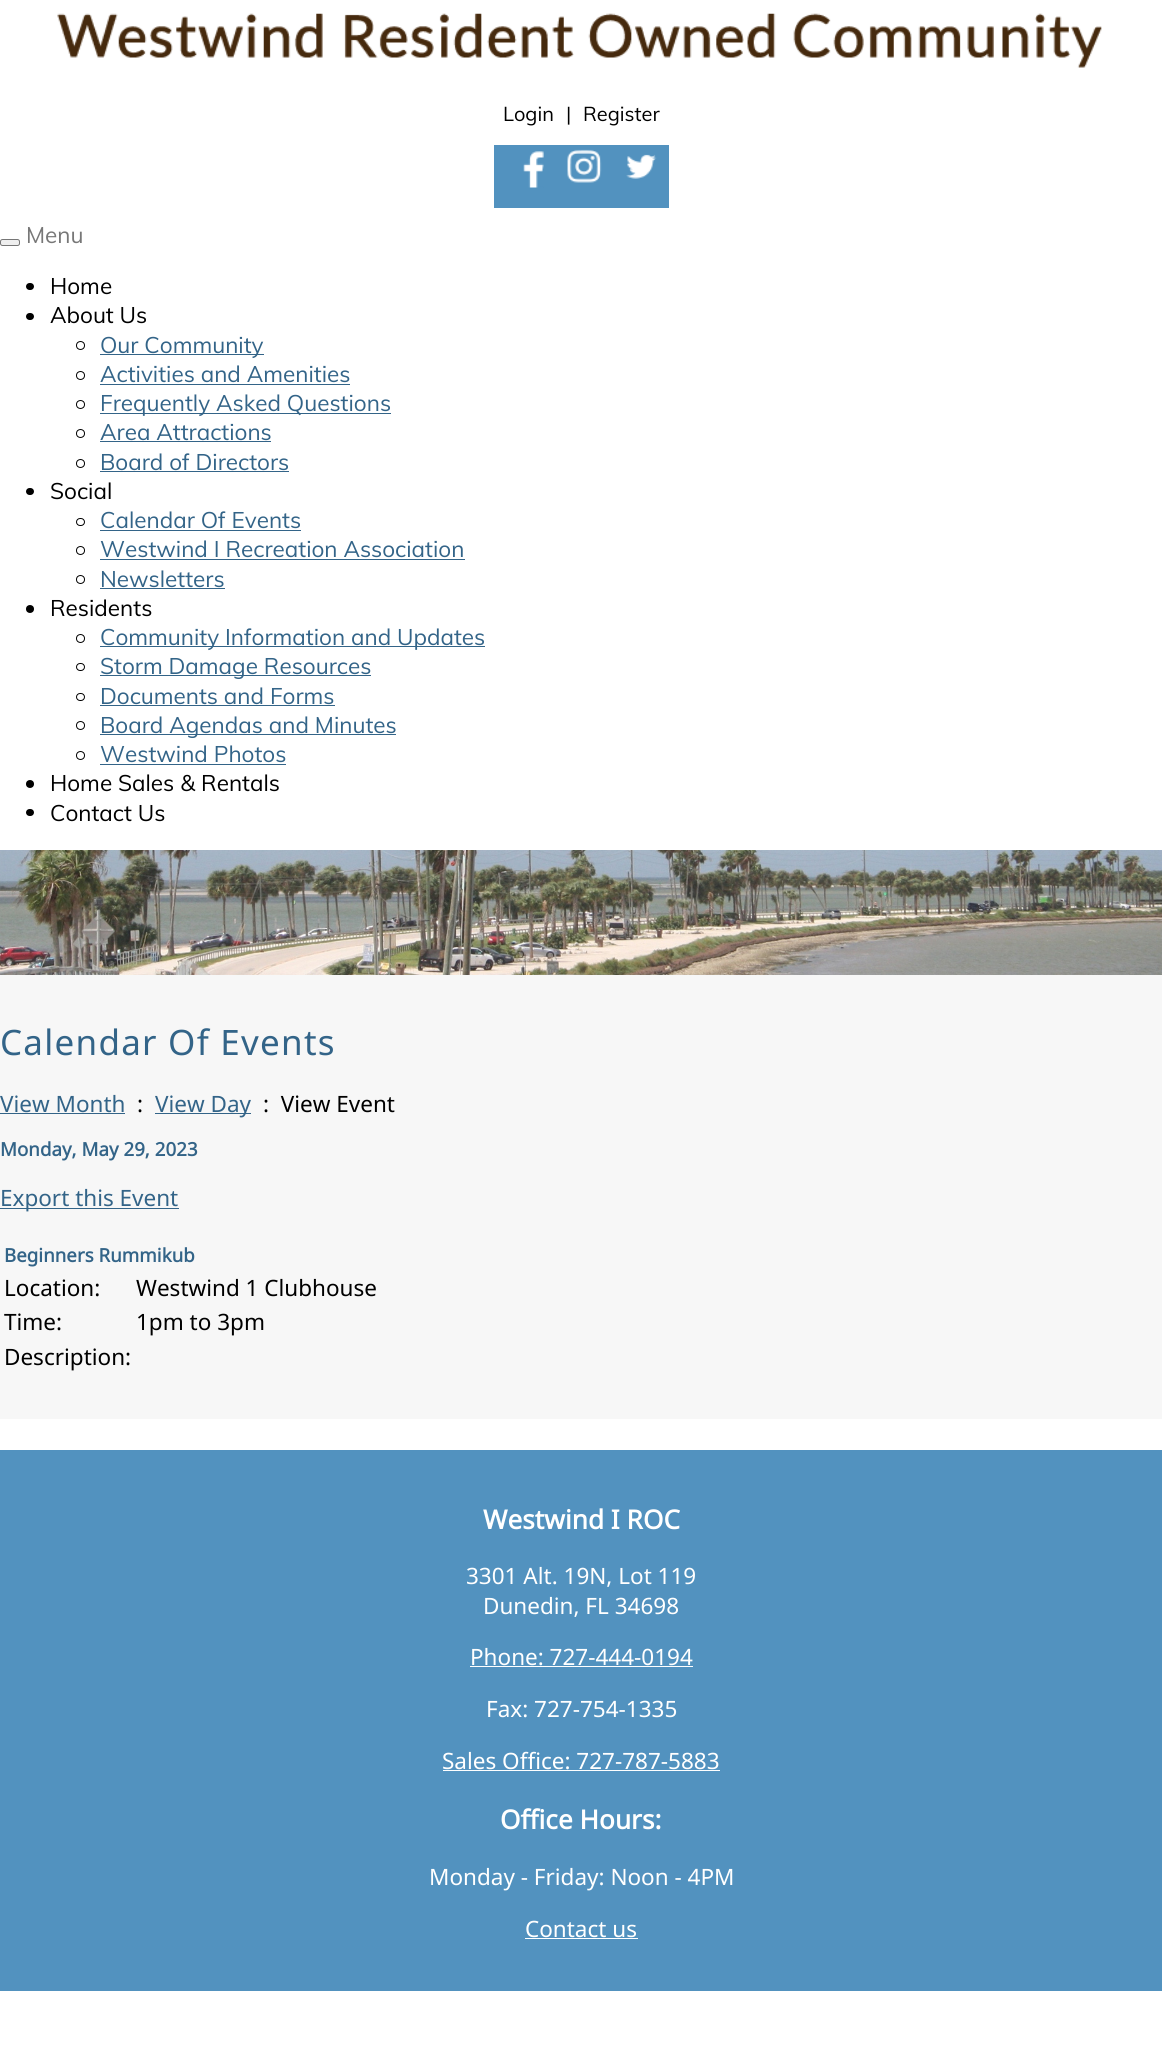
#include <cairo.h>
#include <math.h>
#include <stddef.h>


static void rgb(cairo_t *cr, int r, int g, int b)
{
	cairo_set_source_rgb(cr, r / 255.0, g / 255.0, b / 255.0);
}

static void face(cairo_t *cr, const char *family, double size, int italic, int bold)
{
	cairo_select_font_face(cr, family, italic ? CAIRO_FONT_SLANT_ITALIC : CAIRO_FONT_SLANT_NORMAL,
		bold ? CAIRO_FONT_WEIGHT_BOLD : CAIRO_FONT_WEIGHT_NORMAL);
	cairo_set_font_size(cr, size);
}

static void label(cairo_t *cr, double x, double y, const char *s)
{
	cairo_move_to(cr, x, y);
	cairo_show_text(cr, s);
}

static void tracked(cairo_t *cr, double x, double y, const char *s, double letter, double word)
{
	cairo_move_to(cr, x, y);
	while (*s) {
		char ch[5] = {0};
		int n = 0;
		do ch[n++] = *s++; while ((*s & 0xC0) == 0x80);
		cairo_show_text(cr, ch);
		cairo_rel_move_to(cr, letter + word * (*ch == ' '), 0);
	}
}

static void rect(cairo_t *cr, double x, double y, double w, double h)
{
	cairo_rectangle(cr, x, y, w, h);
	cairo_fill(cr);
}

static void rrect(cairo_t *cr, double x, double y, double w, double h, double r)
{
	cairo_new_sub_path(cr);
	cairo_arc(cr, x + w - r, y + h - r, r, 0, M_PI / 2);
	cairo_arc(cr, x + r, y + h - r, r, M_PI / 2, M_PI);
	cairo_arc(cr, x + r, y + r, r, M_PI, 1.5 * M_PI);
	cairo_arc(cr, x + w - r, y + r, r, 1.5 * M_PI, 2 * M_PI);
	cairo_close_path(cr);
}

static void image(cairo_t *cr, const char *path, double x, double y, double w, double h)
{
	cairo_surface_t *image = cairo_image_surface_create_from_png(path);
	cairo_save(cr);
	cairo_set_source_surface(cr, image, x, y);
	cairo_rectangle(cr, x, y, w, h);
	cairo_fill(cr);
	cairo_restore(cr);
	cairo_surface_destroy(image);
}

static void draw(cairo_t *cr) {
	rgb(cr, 255, 255, 255);
	cairo_paint(cr);
	image(cr, "image0.png", 57, 13, 1045, 55);
	face(cr, "Muli", 20, 0, 0);
	rgb(cr, 0, 0, 0);
	label(cr, 503, 121, "Login");
	label(cr, 566, 121, "|");
	label(cr, 583, 121, "Register");
	rgb(cr, 82, 146, 191);
	rect(cr, 494, 145, 175, 63);
	image(cr, "image1.png", 523, 151, 21, 37);
	image(cr, "image2.png", 567, 149, 35, 34);
	image(cr, "image3.png", 626, 154, 31, 25);
	rgb(cr, 239, 239, 239);
	rrect(cr, 0.5, 239.5, 19, 6, 2);
	cairo_fill_preserve(cr);
	rgb(cr, 118, 118, 118);
	cairo_set_line_width(cr, 1);
	cairo_stroke(cr);
	face(cr, "Muli", 22.5, 0, 0);
	rgb(cr, 119, 119, 119);
	label(cr, 26, 243, "Menu");
	rgb(cr, 0, 0, 0);
	rrect(cr, 26, 283, 8, 7, 3.5);
	cairo_fill(cr);
	label(cr, 50, 294, "Home");
	rrect(cr, 26, 313, 8, 7, 3.5);
	cairo_fill(cr);
	label(cr, 50, 323, "About Us");
	cairo_new_path(cr);
	cairo_arc(cr, 80.5, 345.5, 4, 0, 2 * M_PI);
	cairo_stroke(cr);
	rgb(cr, 51, 100, 136);
	rect(cr, 100, 354, 164, 1);
	label(cr, 100, 353, "Our Community");
	cairo_new_path(cr);
	cairo_arc(cr, 80.5, 375.5, 4, 0, 2 * M_PI);
	rgb(cr, 0, 0, 0);
	cairo_stroke(cr);
	rgb(cr, 51, 100, 136);
	label(cr, 100, 382, "Activities and Amenities");
	rect(cr, 100, 384, 250, 1);
	cairo_new_path(cr);
	cairo_arc(cr, 80.5, 404.5, 4, 0, 2 * M_PI);
	rgb(cr, 0, 0, 0);
	cairo_stroke(cr);
	rgb(cr, 51, 100, 136);
	rect(cr, 100, 413, 291, 1);
	label(cr, 100, 411, "Frequently Asked Questions");
	cairo_new_path(cr);
	cairo_arc(cr, 80.5, 433.5, 4, 0, 2 * M_PI);
	rgb(cr, 0, 0, 0);
	cairo_stroke(cr);
	rgb(cr, 51, 100, 136);
	label(cr, 100, 440, "Area Attractions");
	rect(cr, 100, 441, 171, 1);
	cairo_new_path(cr);
	cairo_arc(cr, 80.5, 463.5, 4, 0, 2 * M_PI);
	rgb(cr, 0, 0, 0);
	cairo_stroke(cr);
	rgb(cr, 51, 100, 136);
	label(cr, 100, 470, "Board of Directors");
	rect(cr, 100, 471, 189, 1);
	rgb(cr, 0, 0, 0);
	rrect(cr, 26, 488, 8, 7, 3.5);
	cairo_fill(cr);
	label(cr, 50, 499, "Social");
	rrect(cr, 76.5, 518.5, 8, 7, 3.5);
	cairo_stroke(cr);
	rgb(cr, 51, 100, 136);
	label(cr, 100, 528, "Calendar Of Events");
	rect(cr, 100, 530, 201, 1);
	cairo_new_path(cr);
	cairo_arc(cr, 80.5, 550.5, 4, 0, 2 * M_PI);
	rgb(cr, 0, 0, 0);
	cairo_stroke(cr);
	rgb(cr, 51, 100, 136);
	label(cr, 100, 557, "Westwind I Recreation Association");
	rect(cr, 100, 559, 365, 1);
	cairo_new_path(cr);
	cairo_arc(cr, 80.5, 579.5, 4, 0, 2 * M_PI);
	rgb(cr, 0, 0, 0);
	cairo_stroke(cr);
	rgb(cr, 51, 100, 136);
	label(cr, 100, 587, "Newsletters");
	rect(cr, 100, 588, 125, 1);
	rgb(cr, 0, 0, 0);
	cairo_new_path(cr);
	cairo_arc(cr, 30, 609, 4, 0, 2 * M_PI);
	cairo_fill(cr);
	label(cr, 50, 616, "Residents");
	cairo_new_path(cr);
	cairo_arc(cr, 80.5, 638.5, 4, 0, 2 * M_PI);
	cairo_stroke(cr);
	rgb(cr, 51, 100, 136);
	rect(cr, 100, 646, 385, 1);
	label(cr, 100, 645, "Community Information and Updates");
	rrect(cr, 76.5, 663.5, 8, 7, 3.5);
	rgb(cr, 0, 0, 0);
	cairo_stroke(cr);
	rgb(cr, 51, 100, 136);
	rect(cr, 100, 675, 271, 1);
	label(cr, 100, 674, "Storm Damage Resources");
	rrect(cr, 76.5, 693.5, 8, 7, 3.5);
	rgb(cr, 0, 0, 0);
	cairo_stroke(cr);
	rgb(cr, 51, 100, 136);
	label(cr, 100, 704, "Documents and Forms");
	rect(cr, 100, 705, 235, 1);
	cairo_new_path(cr);
	cairo_arc(cr, 80.5, 725.5, 4, 0, 2 * M_PI);
	rgb(cr, 0, 0, 0);
	cairo_stroke(cr);
	rgb(cr, 51, 100, 136);
	rect(cr, 100, 734, 296, 1);
	label(cr, 100, 733, "Board Agendas and Minutes");
	cairo_new_path(cr);
	cairo_arc(cr, 80.5, 755.5, 4, 0, 2 * M_PI);
	rgb(cr, 0, 0, 0);
	cairo_stroke(cr);
	rgb(cr, 51, 100, 136);
	label(cr, 100, 762, "Westwind Photos");
	rect(cr, 100, 764, 186, 1);
	rgb(cr, 0, 0, 0);
	cairo_new_path(cr);
	cairo_arc(cr, 30, 784, 4, 0, 2 * M_PI);
	cairo_fill(cr);
	label(cr, 50, 791, "Home Sales & Rentals");
	rrect(cr, 26, 809, 8, 7, 3.5);
	cairo_fill(cr);
	label(cr, 50, 821, "Contact Us");
	image(cr, "image4.png", 0, 850, 1162, 125);
	rgb(cr, 247, 247, 247);
	rect(cr, 0, 975, 1162, 444);
	face(cr, "Noto Sans", 35, 0, 0);
	rgb(cr, 51, 100, 136);
	tracked(cr, 0, 1055, "Calendar Of Events", 1.25, 0);
	face(cr, "Noto Sans", 22.5, 0, 0);
	label(cr, 0, 1112, "View Month");
	rect(cr, 0, 1113, 125, 1);
	rgb(cr, 0, 0, 0);
	label(cr, 137, 1112, ":");
	rgb(cr, 51, 100, 136);
	rect(cr, 155, 1113, 96, 1);
	label(cr, 155, 1112, "View Day");
	rgb(cr, 0, 0, 0);
	label(cr, 263, 1112, ":  View Event");
	face(cr, "Noto Sans", 18.75, 0, 1);
	rgb(cr, 51, 100, 136);
	label(cr, 0, 1156, "Monday, May 29, 2023");
	rect(cr, 0, 1208, 179, 1);
	face(cr, "Noto Sans", 22.5, 0, 0);
	label(cr, 0, 1206, "Export this Event");
	face(cr, "Noto Sans", 18.75, 0, 1);
	label(cr, 4, 1262, "Beginners Rummikub");
	face(cr, "Noto Sans", 22.5, 0, 0);
	rgb(cr, 0, 0, 0);
	label(cr, 4, 1296, "Location:");
	label(cr, 136, 1296, "Westwind 1 Clubhouse");
	label(cr, 4, 1330, "Time:");
	label(cr, 136, 1330, "1pm to 3pm");
	label(cr, 4, 1365, "Description:");
	rgb(cr, 82, 146, 191);
	rect(cr, 0, 1450, 1162, 541);
	face(cr, "Noto Sans", 26.25, 0, 1);
	rgb(cr, 255, 255, 255);
	label(cr, 483, 1529, "Westwind I ROC");
	face(cr, "Noto Sans", 22.5, 0, 0);
	label(cr, 466, 1584, "3301 Alt. 19N, Lot 119");
	label(cr, 483, 1614, "Dunedin, FL 34698");
	label(cr, 470, 1665, "Phone: 727-444-0194");
	rect(cr, 470, 1666, 223, 1);
	label(cr, 486, 1717, "Fax: 727-754-1335");
	label(cr, 442, 1769, "Sales Office: 727-787-5883");
	rect(cr, 443, 1770, 277, 1);
	face(cr, "Noto Sans", 26.25, 0, 1);
	label(cr, 500, 1829, "Office Hours:");
	face(cr, "Noto Sans", 22.5, 0, 0);
	label(cr, 429, 1885, "Monday - Friday: Noon - 4PM");
	label(cr, 525, 1937, "Contact us");
	rect(cr, 525, 1938, 113, 1);
}

int main(void) {
	cairo_surface_t *surface = cairo_image_surface_create(CAIRO_FORMAT_RGB24, 1162, 2057);
	cairo_t *cr = cairo_create(surface);
	cairo_font_options_t *options = cairo_font_options_create();
	cairo_font_options_set_hint_metrics(options, CAIRO_HINT_METRICS_OFF);
	cairo_font_options_set_hint_style(options, CAIRO_HINT_STYLE_NONE);
	cairo_set_font_options(cr, options);
	cairo_set_miter_limit(cr, 4);
	draw(cr);
	cairo_surface_write_to_png(surface, "render.png");
	cairo_font_options_destroy(options);
	cairo_destroy(cr);
	cairo_surface_destroy(surface);
	return 0;
}
